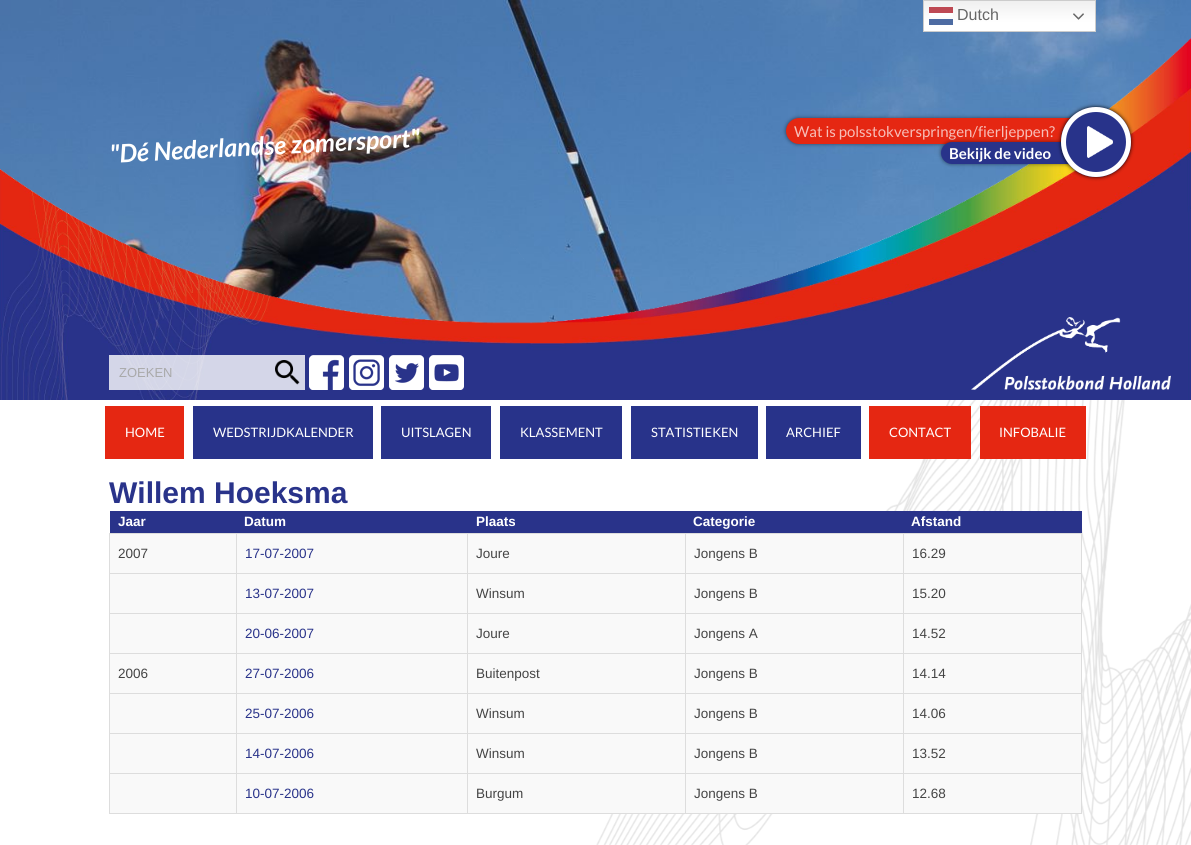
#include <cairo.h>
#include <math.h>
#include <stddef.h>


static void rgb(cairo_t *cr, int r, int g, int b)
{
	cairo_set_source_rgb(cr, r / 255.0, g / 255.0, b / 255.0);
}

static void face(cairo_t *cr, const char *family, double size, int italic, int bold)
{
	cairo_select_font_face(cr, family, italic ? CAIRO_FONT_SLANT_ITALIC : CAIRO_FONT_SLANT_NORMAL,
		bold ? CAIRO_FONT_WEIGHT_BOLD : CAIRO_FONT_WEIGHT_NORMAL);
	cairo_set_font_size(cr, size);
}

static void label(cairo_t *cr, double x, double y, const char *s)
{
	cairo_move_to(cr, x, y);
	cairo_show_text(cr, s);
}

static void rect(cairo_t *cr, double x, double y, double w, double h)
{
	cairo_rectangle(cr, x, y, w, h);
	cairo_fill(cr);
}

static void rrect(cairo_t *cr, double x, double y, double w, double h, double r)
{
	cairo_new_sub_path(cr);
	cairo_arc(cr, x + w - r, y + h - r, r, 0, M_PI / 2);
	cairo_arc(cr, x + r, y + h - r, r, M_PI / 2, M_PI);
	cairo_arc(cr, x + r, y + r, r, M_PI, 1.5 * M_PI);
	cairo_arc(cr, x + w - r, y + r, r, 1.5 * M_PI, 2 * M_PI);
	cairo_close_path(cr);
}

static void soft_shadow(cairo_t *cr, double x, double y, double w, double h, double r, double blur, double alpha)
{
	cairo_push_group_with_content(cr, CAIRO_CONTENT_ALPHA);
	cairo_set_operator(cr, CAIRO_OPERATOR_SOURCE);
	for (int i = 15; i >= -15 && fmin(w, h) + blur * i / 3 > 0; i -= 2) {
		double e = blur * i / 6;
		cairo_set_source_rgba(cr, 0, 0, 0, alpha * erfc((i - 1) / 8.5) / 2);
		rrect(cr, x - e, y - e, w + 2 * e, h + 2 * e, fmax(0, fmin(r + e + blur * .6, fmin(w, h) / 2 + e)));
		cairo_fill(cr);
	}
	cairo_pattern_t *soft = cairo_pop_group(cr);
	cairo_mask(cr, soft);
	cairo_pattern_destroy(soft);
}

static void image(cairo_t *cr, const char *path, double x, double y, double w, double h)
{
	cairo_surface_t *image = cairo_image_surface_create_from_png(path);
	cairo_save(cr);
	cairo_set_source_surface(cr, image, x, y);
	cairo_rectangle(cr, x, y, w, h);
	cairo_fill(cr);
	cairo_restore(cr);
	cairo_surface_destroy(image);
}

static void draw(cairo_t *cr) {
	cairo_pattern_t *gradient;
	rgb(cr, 255, 255, 255);
	cairo_paint(cr);
	image(cr, "image0.png", 596, 400, 595, 445);
	image(cr, "image2.png", 0, 0, 1191, 400);
	gradient = cairo_pattern_create_linear(1010, 0, 1010, 32);
	cairo_pattern_add_color_stop_rgba(gradient, 0, 0.937, 0.937, 0.937, 1);
	cairo_pattern_add_color_stop_rgba(gradient, 0.7, 1, 1, 1, 1);
	cairo_set_source(cr, gradient);
	cairo_pattern_destroy(gradient);
	rect(cr, 924, 1, 171, 30);
	cairo_rectangle(cr, 923.5, 0.5, 172, 31);
	rgb(cr, 204, 204, 204);
	cairo_set_line_width(cr, 1);
	cairo_stroke(cr);
	rgb(cr, 190, 73, 83);
	rect(cr, 929, 7, 24, 6);
	face(cr, "Liberation Sans", 16, 0, 0);
	rgb(cr, 102, 102, 102);
	label(cr, 957, 20, "Dutch");
	cairo_set_source_rgba(cr, 1, 1, 1, 0.8);
	rect(cr, 929, 13, 24, 4);
	image(cr, "image1.png", 1073, 13, 11, 7);
	rgb(cr, 77, 107, 162);
	rect(cr, 929, 19, 24, 6);
	face(cr, "Lato", 25.25, 1, 1);
	rgb(cr, 255, 255, 255);
	cairo_save(cr);
	cairo_translate(cr, 110, 163);
	cairo_rotate(cr, -3 * M_PI / 180);
	label(cr, 0, 0, "\"Dé Nederlandse zomersport\"");
	cairo_restore(cr);
	cairo_set_source_rgba(cr, 1, 1, 1, 0.8);
	rect(cr, 109, 355, 161, 35);
	face(cr, "Liberation Sans", 13, 0, 0);
	rgb(cr, 169, 169, 169);
	label(cr, 119, 377, "ZOEKEN");
	rgb(cr, 212, 214, 232);
	rect(cr, 270, 355, 35, 35);
	image(cr, "image3.png", 275, 360, 25, 25);
	image(cr, "image4.png", 309, 355, 35, 35);
	image(cr, "image5.png", 349, 355, 35, 35);
	image(cr, "image6.png", 389, 355, 35, 35);
	image(cr, "image7.png", 429, 355, 35, 35);
	image(cr, "image8.png", 971, 317, 200, 73);
	rgb(cr, 0, 0, 0);
	soft_shadow(cr, 786, 118, 320, 26, 13, 2, 0.5);
	rgb(cr, 229, 39, 18);
	cairo_new_path(cr);
	cairo_move_to(cr, 799, 118);
	cairo_line_to(cr, 1106, 118);
	cairo_line_to(cr, 1106, 144);
	cairo_line_to(cr, 799, 144);
	cairo_curve_to(cr, 792, 144, 786, 138, 786, 131);
	cairo_curve_to(cr, 786, 124, 792, 118, 799, 118);
	cairo_close_path(cr);
	cairo_fill(cr);
	face(cr, "Lato", 15, 0, 0);
	rgb(cr, 247, 190, 184);
	label(cr, 794, 137, "Wat is polsstokverspringen/fierljeppen?");
	rgb(cr, 0, 0, 0);
	soft_shadow(cr, 941, 142, 150, 22, 11, 2, 0.5);
	rgb(cr, 40, 51, 138);
	cairo_new_path(cr);
	cairo_move_to(cr, 952, 142);
	cairo_line_to(cr, 1091, 142);
	cairo_line_to(cr, 1091, 164);
	cairo_line_to(cr, 952, 164);
	cairo_curve_to(cr, 946, 164, 941, 159, 941, 153);
	cairo_curve_to(cr, 941, 147, 946, 142, 952, 142);
	cairo_close_path(cr);
	cairo_fill(cr);
	rgb(cr, 0, 0, 0);
	soft_shadow(cr, 1061, 107, 70, 70, 35, 2, 1);
	rgb(cr, 40, 51, 138);
	cairo_arc(cr, 1096, 142, 35, 0, 2 * M_PI);
	cairo_fill(cr);
	image(cr, "image9.png", 1087, 126, 26, 32);
	cairo_arc(cr, 1096, 142, 32.5, 0, 2 * M_PI);
	rgb(cr, 255, 255, 255);
	cairo_set_line_width(cr, 5);
	cairo_stroke(cr);
	face(cr, "Lato", 15, 0, 1);
	label(cr, 949, 159, "Bekijk de video");
	rgb(cr, 229, 39, 18);
	rect(cr, 105, 406, 79, 53);
	face(cr, "Lato", 13, 0, 0);
	rgb(cr, 255, 255, 255);
	label(cr, 125, 437, "HOME");
	rgb(cr, 40, 51, 138);
	rect(cr, 193, 406, 180, 53);
	rgb(cr, 255, 255, 255);
	label(cr, 213, 437, "WEDSTRIJDKALENDER");
	rgb(cr, 40, 51, 138);
	rect(cr, 381, 406, 110, 53);
	rgb(cr, 255, 255, 255);
	label(cr, 401, 437, "UITSLAGEN");
	rgb(cr, 40, 51, 138);
	rect(cr, 500, 406, 122, 53);
	rgb(cr, 255, 255, 255);
	label(cr, 520, 437, "KLASSEMENT");
	rgb(cr, 40, 51, 138);
	rect(cr, 631, 406, 127, 53);
	rgb(cr, 255, 255, 255);
	label(cr, 651, 437, "STATISTIEKEN");
	rgb(cr, 40, 51, 138);
	rect(cr, 766, 406, 95, 53);
	rgb(cr, 255, 255, 255);
	label(cr, 786, 437, "ARCHIEF");
	rgb(cr, 229, 39, 18);
	rect(cr, 869, 406, 102, 53);
	rgb(cr, 255, 255, 255);
	label(cr, 889, 437, "CONTACT");
	rgb(cr, 229, 39, 18);
	rect(cr, 980, 406, 106, 53);
	rgb(cr, 255, 255, 255);
	label(cr, 999, 437, "INFOBALIE");
	face(cr, "Liberation Sans", 30, 0, 1);
	rgb(cr, 41, 51, 138);
	label(cr, 109, 503, "Willem Hoeksma");
	rect(cr, 110, 511, 972, 22);
	face(cr, "Liberation Sans", 13.5, 0, 1);
	rgb(cr, 255, 255, 255);
	label(cr, 118, 526, "Jaar");
	label(cr, 244, 526, "Datum");
	label(cr, 476, 526, "Plaats");
	label(cr, 693, 526, "Categorie");
	label(cr, 911, 526, "Afstand");
	rgb(cr, 249, 249, 249);
	rect(cr, 110, 534, 126, 39);
	rgb(cr, 221, 221, 221);
	rect(cr, 903, 533, 179, 1);
	rect(cr, 903, 573, 179, 1);
	rect(cr, 903, 613, 179, 1);
	rect(cr, 903, 653, 179, 1);
	rect(cr, 903, 693, 179, 1);
	rect(cr, 903, 733, 179, 1);
	rect(cr, 903, 773, 179, 1);
	rect(cr, 1081, 773, 1, 41);
	rect(cr, 903, 813, 179, 1);
	rect(cr, 903, 773, 1, 41);
	rect(cr, 685, 773, 219, 1);
	rect(cr, 903, 733, 1, 41);
	rect(cr, 685, 733, 219, 1);
	rect(cr, 903, 693, 1, 41);
	rect(cr, 685, 693, 219, 1);
	rect(cr, 903, 653, 1, 41);
	rect(cr, 685, 653, 219, 1);
	rect(cr, 903, 613, 1, 41);
	rect(cr, 685, 613, 219, 1);
	rect(cr, 903, 573, 1, 41);
	rect(cr, 685, 573, 219, 1);
	rect(cr, 903, 533, 1, 41);
	rect(cr, 685, 533, 219, 1);
	rect(cr, 685, 813, 219, 1);
	rect(cr, 685, 773, 1, 41);
	rect(cr, 467, 773, 219, 1);
	rect(cr, 685, 733, 1, 41);
	rect(cr, 467, 733, 219, 1);
	rect(cr, 685, 693, 1, 41);
	rect(cr, 467, 693, 219, 1);
	rect(cr, 685, 653, 1, 41);
	rect(cr, 467, 653, 219, 1);
	rect(cr, 685, 613, 1, 41);
	rect(cr, 467, 613, 219, 1);
	rect(cr, 685, 573, 1, 41);
	rect(cr, 467, 573, 219, 1);
	rect(cr, 685, 533, 1, 41);
	rect(cr, 467, 533, 219, 1);
	rect(cr, 467, 813, 219, 1);
	rect(cr, 467, 773, 1, 41);
	rect(cr, 236, 773, 232, 1);
	rect(cr, 467, 733, 1, 41);
	rect(cr, 236, 733, 232, 1);
	rect(cr, 467, 693, 1, 41);
	rect(cr, 236, 693, 232, 1);
	rect(cr, 467, 653, 1, 41);
	rect(cr, 236, 653, 232, 1);
	rect(cr, 467, 613, 1, 41);
	rect(cr, 236, 613, 232, 1);
	rect(cr, 467, 573, 1, 41);
	rect(cr, 236, 573, 232, 1);
	rect(cr, 467, 533, 1, 41);
	rect(cr, 236, 533, 232, 1);
	rect(cr, 236, 813, 232, 1);
	rect(cr, 236, 773, 1, 41);
	rect(cr, 109, 773, 128, 1);
	rect(cr, 236, 733, 1, 41);
	rect(cr, 109, 733, 128, 1);
	rect(cr, 236, 693, 1, 41);
	rect(cr, 109, 693, 128, 1);
	rect(cr, 236, 653, 1, 41);
	rect(cr, 109, 653, 128, 1);
	rect(cr, 236, 613, 1, 41);
	rect(cr, 109, 613, 128, 1);
	rect(cr, 236, 573, 1, 41);
	rect(cr, 109, 573, 128, 1);
	rect(cr, 236, 533, 1, 41);
	rect(cr, 109, 533, 128, 1);
	rect(cr, 109, 813, 128, 1);
	rect(cr, 109, 773, 1, 41);
	rect(cr, 109, 733, 1, 41);
	rect(cr, 109, 693, 1, 41);
	rect(cr, 109, 653, 1, 41);
	rect(cr, 109, 613, 1, 41);
	rect(cr, 109, 573, 1, 41);
	rect(cr, 109, 533, 1, 41);
	face(cr, "Liberation Sans", 13.5, 0, 0);
	rgb(cr, 68, 68, 68);
	label(cr, 118, 558, "2007");
	rgb(cr, 249, 249, 249);
	rect(cr, 237, 534, 230, 39);
	rgb(cr, 41, 51, 138);
	label(cr, 245, 558, "17-07-2007");
	rgb(cr, 249, 249, 249);
	rect(cr, 468, 534, 217, 39);
	rgb(cr, 68, 68, 68);
	label(cr, 476, 558, "Joure");
	rgb(cr, 249, 249, 249);
	rect(cr, 686, 534, 217, 39);
	rgb(cr, 68, 68, 68);
	label(cr, 694, 558, "Jongens B");
	rgb(cr, 249, 249, 249);
	rect(cr, 904, 534, 177, 39);
	rgb(cr, 221, 221, 221);
	rect(cr, 1081, 733, 1, 41);
	rect(cr, 1081, 693, 1, 41);
	rect(cr, 1081, 653, 1, 41);
	rect(cr, 1081, 613, 1, 41);
	rect(cr, 1081, 573, 1, 41);
	rect(cr, 1081, 533, 1, 41);
	rgb(cr, 68, 68, 68);
	label(cr, 912, 558, "16.29");
	rgb(cr, 249, 249, 249);
	rect(cr, 110, 574, 126, 39);
	rect(cr, 237, 574, 230, 39);
	rgb(cr, 41, 51, 138);
	label(cr, 245, 598, "13-07-2007");
	rgb(cr, 249, 249, 249);
	rect(cr, 468, 574, 217, 39);
	rgb(cr, 68, 68, 68);
	label(cr, 476, 598, "Winsum");
	rgb(cr, 249, 249, 249);
	rect(cr, 686, 574, 217, 39);
	rgb(cr, 68, 68, 68);
	label(cr, 694, 598, "Jongens B");
	rgb(cr, 249, 249, 249);
	rect(cr, 904, 574, 177, 39);
	rgb(cr, 68, 68, 68);
	label(cr, 912, 598, "15.20");
	rgb(cr, 249, 249, 249);
	rect(cr, 110, 614, 126, 39);
	rect(cr, 237, 614, 230, 39);
	rgb(cr, 41, 51, 138);
	label(cr, 245, 638, "20-06-2007");
	rgb(cr, 249, 249, 249);
	rect(cr, 468, 614, 217, 39);
	rgb(cr, 68, 68, 68);
	label(cr, 476, 638, "Joure");
	rgb(cr, 249, 249, 249);
	rect(cr, 686, 614, 217, 39);
	rgb(cr, 68, 68, 68);
	label(cr, 694, 638, "Jongens A");
	rgb(cr, 249, 249, 249);
	rect(cr, 904, 614, 177, 39);
	rgb(cr, 68, 68, 68);
	label(cr, 912, 638, "14.52");
	rgb(cr, 249, 249, 249);
	rect(cr, 110, 654, 126, 39);
	rgb(cr, 68, 68, 68);
	label(cr, 118, 678, "2006");
	rgb(cr, 249, 249, 249);
	rect(cr, 237, 654, 230, 39);
	rgb(cr, 41, 51, 138);
	label(cr, 245, 678, "27-07-2006");
	rgb(cr, 249, 249, 249);
	rect(cr, 468, 654, 217, 39);
	rgb(cr, 68, 68, 68);
	label(cr, 476, 678, "Buitenpost");
	rgb(cr, 249, 249, 249);
	rect(cr, 686, 654, 217, 39);
	rgb(cr, 68, 68, 68);
	label(cr, 694, 678, "Jongens B");
	rgb(cr, 249, 249, 249);
	rect(cr, 904, 654, 177, 39);
	rgb(cr, 68, 68, 68);
	label(cr, 912, 678, "14.14");
	rgb(cr, 249, 249, 249);
	rect(cr, 110, 694, 126, 39);
	rect(cr, 237, 694, 230, 39);
	rgb(cr, 41, 51, 138);
	label(cr, 245, 718, "25-07-2006");
	rgb(cr, 249, 249, 249);
	rect(cr, 468, 694, 217, 39);
	rgb(cr, 68, 68, 68);
	label(cr, 476, 718, "Winsum");
	rgb(cr, 249, 249, 249);
	rect(cr, 686, 694, 217, 39);
	rgb(cr, 68, 68, 68);
	label(cr, 694, 718, "Jongens B");
	rgb(cr, 249, 249, 249);
	rect(cr, 904, 694, 177, 39);
	rgb(cr, 68, 68, 68);
	label(cr, 912, 718, "14.06");
	rgb(cr, 249, 249, 249);
	rect(cr, 110, 734, 126, 39);
	rect(cr, 237, 734, 230, 39);
	rgb(cr, 41, 51, 138);
	label(cr, 245, 758, "14-07-2006");
	rgb(cr, 249, 249, 249);
	rect(cr, 468, 734, 217, 39);
	rgb(cr, 68, 68, 68);
	label(cr, 476, 758, "Winsum");
	rgb(cr, 249, 249, 249);
	rect(cr, 686, 734, 217, 39);
	rgb(cr, 68, 68, 68);
	label(cr, 694, 758, "Jongens B");
	rgb(cr, 249, 249, 249);
	rect(cr, 904, 734, 177, 39);
	rgb(cr, 68, 68, 68);
	label(cr, 912, 758, "13.52");
	rgb(cr, 249, 249, 249);
	rect(cr, 110, 774, 126, 39);
	rect(cr, 237, 774, 230, 39);
	rgb(cr, 41, 51, 138);
	label(cr, 245, 798, "10-07-2006");
	rgb(cr, 249, 249, 249);
	rect(cr, 468, 774, 217, 39);
	rgb(cr, 68, 68, 68);
	label(cr, 476, 798, "Burgum");
	rgb(cr, 249, 249, 249);
	rect(cr, 686, 774, 217, 39);
	rgb(cr, 68, 68, 68);
	label(cr, 694, 798, "Jongens B");
	rgb(cr, 249, 249, 249);
	rect(cr, 904, 774, 177, 39);
	rgb(cr, 68, 68, 68);
	label(cr, 912, 798, "12.68");
}

int main(void) {
	cairo_surface_t *surface = cairo_image_surface_create(CAIRO_FORMAT_RGB24, 1191, 845);
	cairo_t *cr = cairo_create(surface);
	cairo_font_options_t *options = cairo_font_options_create();
	cairo_font_options_set_hint_metrics(options, CAIRO_HINT_METRICS_OFF);
	cairo_font_options_set_hint_style(options, CAIRO_HINT_STYLE_NONE);
	cairo_set_font_options(cr, options);
	cairo_set_miter_limit(cr, 4);
	draw(cr);
	cairo_surface_write_to_png(surface, "render.png");
	cairo_font_options_destroy(options);
	cairo_destroy(cr);
	cairo_surface_destroy(surface);
	return 0;
}
